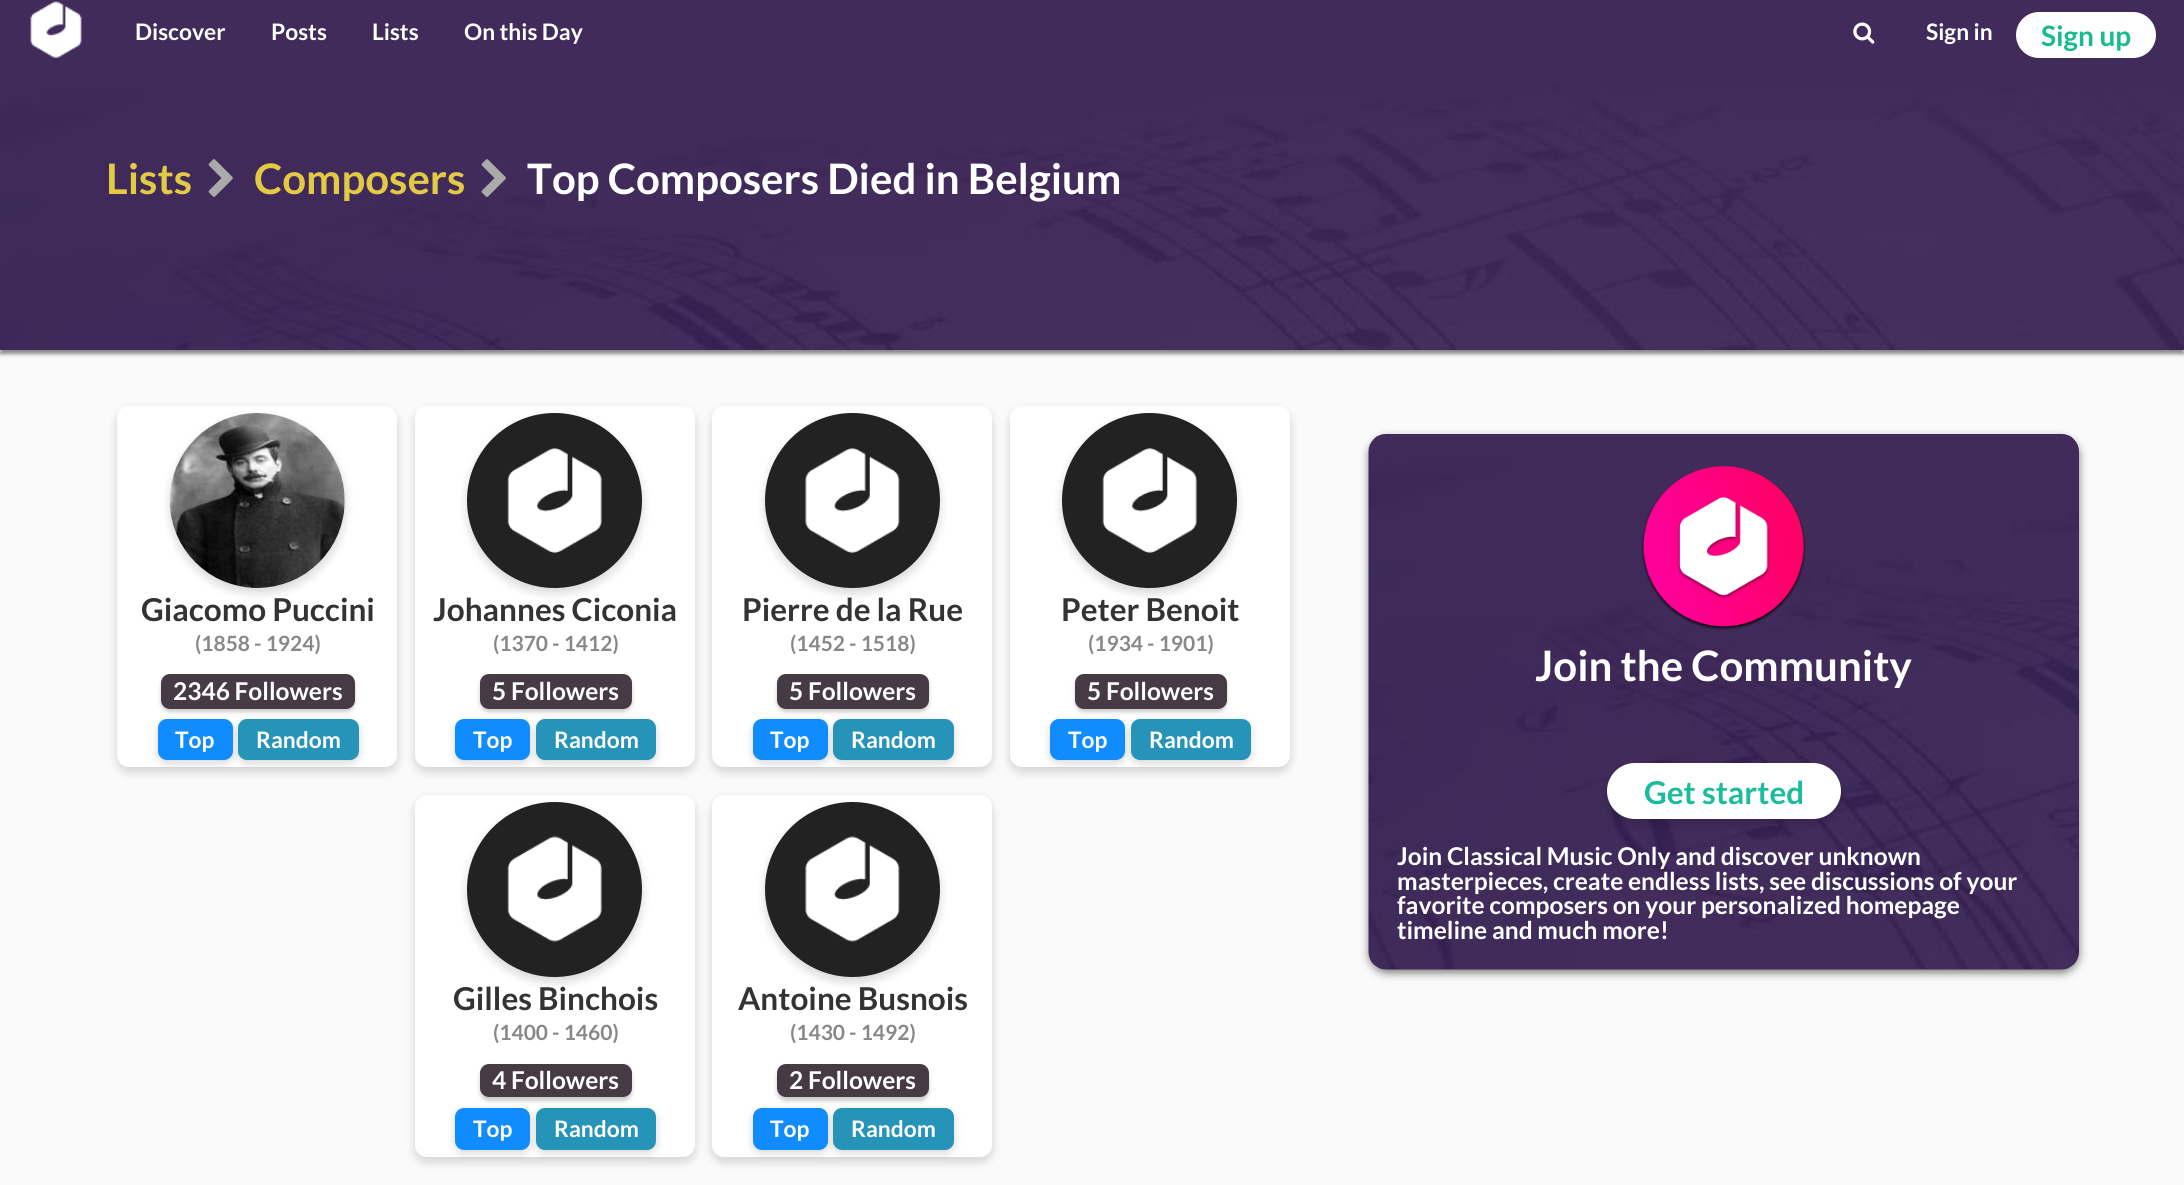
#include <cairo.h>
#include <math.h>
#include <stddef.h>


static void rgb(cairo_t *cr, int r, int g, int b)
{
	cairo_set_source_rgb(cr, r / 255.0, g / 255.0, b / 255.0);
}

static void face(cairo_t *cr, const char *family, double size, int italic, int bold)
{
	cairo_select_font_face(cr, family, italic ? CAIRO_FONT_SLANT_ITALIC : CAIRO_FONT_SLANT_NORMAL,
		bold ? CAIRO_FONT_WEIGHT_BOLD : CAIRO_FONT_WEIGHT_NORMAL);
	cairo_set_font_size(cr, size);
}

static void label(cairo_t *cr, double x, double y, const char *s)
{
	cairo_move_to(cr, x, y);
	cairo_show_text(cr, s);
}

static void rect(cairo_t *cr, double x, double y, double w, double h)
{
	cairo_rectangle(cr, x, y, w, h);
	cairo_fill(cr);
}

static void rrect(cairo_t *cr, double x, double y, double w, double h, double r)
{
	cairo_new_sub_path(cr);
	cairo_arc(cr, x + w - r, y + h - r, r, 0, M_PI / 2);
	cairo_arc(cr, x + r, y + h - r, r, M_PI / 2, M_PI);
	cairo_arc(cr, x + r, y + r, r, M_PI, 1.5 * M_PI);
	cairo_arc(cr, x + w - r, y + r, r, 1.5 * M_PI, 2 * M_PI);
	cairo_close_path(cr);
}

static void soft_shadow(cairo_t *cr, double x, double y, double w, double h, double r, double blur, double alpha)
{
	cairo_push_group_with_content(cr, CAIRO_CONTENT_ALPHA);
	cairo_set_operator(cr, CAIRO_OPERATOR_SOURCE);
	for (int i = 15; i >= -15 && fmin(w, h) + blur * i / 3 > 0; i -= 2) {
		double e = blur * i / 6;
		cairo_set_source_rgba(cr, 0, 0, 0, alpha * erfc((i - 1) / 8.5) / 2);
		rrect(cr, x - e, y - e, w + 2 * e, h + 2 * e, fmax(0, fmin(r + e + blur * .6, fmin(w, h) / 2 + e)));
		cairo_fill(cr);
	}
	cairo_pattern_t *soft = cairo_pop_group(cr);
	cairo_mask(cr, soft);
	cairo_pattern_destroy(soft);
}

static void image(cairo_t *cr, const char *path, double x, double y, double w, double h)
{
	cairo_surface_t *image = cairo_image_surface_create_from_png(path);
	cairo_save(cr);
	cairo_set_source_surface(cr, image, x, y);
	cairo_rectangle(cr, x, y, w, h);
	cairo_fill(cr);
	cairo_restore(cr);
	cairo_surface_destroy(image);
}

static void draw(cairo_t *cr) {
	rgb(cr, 250, 250, 250);
	cairo_paint(cr);
	rgb(cr, 65, 43, 90);
	rect(cr, 0, 0, 2184, 70);
	image(cr, "image0.png", 30, 1, 52, 57);
	face(cr, "Lato", 22.75, 0, 1);
	rgb(cr, 255, 255, 255);
	label(cr, 135, 40, "Discover");
	label(cr, 271, 40, "Posts");
	label(cr, 372, 40, "Lists");
	label(cr, 464, 40, "On this Day");
	image(cr, "image1.png", 1853, 22, 22, 22);
	label(cr, 1926, 40, "Sign in");
	rrect(cr, 2016, 12, 140, 46, 23);
	cairo_fill(cr);
	face(cr, "Lato", 28, 0, 1);
	rgb(cr, 23, 187, 144);
	label(cr, 2041, 46, "Sign up");
	rgb(cr, 136, 136, 136);
	soft_shadow(cr, 0, 74, 2184, 280, 0, 2, 1);
	image(cr, "image2.png", 0, 70, 2184, 280);
	face(cr, "Lato", 42, 0, 1);
	rgb(cr, 227, 202, 68);
	label(cr, 106, 194, "Lists");
	image(cr, "image3.png", 208, 159, 25, 38);
	label(cr, 254, 194, "Composers");
	image(cr, "image4.png", 481, 159, 25, 38);
	rgb(cr, 255, 255, 255);
	label(cr, 527, 194, "Top Composers Died in Belgium");
	rgb(cr, 0, 0, 0);
	soft_shadow(cr, 117, 411, 280, 361, 12, 5, 0.16);
	rgb(cr, 255, 255, 255);
	rrect(cr, 117, 406, 280, 361, 12);
	cairo_fill(cr);
	rgb(cr, 0, 0, 0);
	soft_shadow(cr, 170, 418, 175, 175, 87.5, 5, 0.16);
	image(cr, "image5.png", 170, 413, 175, 175);
	face(cr, "Lato", 31.5, 0, 1);
	rgb(cr, 51, 51, 51);
	label(cr, 141, 621, "Giacomo Puccini");
	face(cr, "Lato", 21, 0, 1);
	rgb(cr, 136, 136, 136);
	label(cr, 195, 651, "(1858 - 1924)");
	rgb(cr, 204, 204, 204);
	soft_shadow(cr, 161, 677, 194, 35, 9, 2, 1);
	rgb(cr, 70, 58, 69);
	rrect(cr, 161, 674, 194, 35, 9);
	cairo_fill(cr);
	face(cr, "Lato", 24.5, 0, 1);
	rgb(cr, 255, 255, 255);
	label(cr, 173, 700, "2346 Followers");
	rgb(cr, 0, 0, 0);
	soft_shadow(cr, 158, 723, 75, 40, 9, 4.5, 0.16);
	rgb(cr, 16, 140, 255);
	rrect(cr, 158, 719, 75, 41, 9);
	cairo_fill(cr);
	face(cr, "Lato", 22.75, 0, 1);
	rgb(cr, 255, 255, 255);
	label(cr, 175, 748, "Top");
	rgb(cr, 0, 0, 0);
	soft_shadow(cr, 238, 723, 121, 40, 9, 4.5, 0.16);
	rgb(cr, 38, 148, 185);
	rrect(cr, 238, 719, 121, 41, 9);
	cairo_fill(cr);
	rgb(cr, 255, 255, 255);
	label(cr, 256, 748, "Random");
	rgb(cr, 0, 0, 0);
	soft_shadow(cr, 415, 411, 280, 361, 12, 5, 0.16);
	rgb(cr, 255, 255, 255);
	rrect(cr, 415, 406, 280, 361, 12);
	cairo_fill(cr);
	rgb(cr, 0, 0, 0);
	soft_shadow(cr, 467, 418, 175, 175, 87.5, 5, 0.16);
	rgb(cr, 34, 34, 34);
	cairo_arc(cr, 554.5, 500.5, 87.5, 0, 2 * M_PI);
	cairo_fill(cr);
	image(cr, "image6.png", 507, 448, 95, 105);
	face(cr, "Lato", 31.5, 0, 1);
	rgb(cr, 51, 51, 51);
	label(cr, 433, 621, "Johannes Ciconia");
	face(cr, "Lato", 21, 0, 1);
	rgb(cr, 136, 136, 136);
	label(cr, 493, 651, "(1370 - 1412)");
	rgb(cr, 204, 204, 204);
	soft_shadow(cr, 480, 677, 152, 35, 9, 2, 1);
	rgb(cr, 70, 58, 69);
	rrect(cr, 480, 674, 152, 35, 9);
	cairo_fill(cr);
	face(cr, "Lato", 24.5, 0, 1);
	rgb(cr, 255, 255, 255);
	label(cr, 492, 700, "5 Followers");
	rgb(cr, 0, 0, 0);
	soft_shadow(cr, 455, 723, 75, 40, 9, 4.5, 0.16);
	rgb(cr, 16, 140, 255);
	rrect(cr, 455, 719, 75, 41, 9);
	cairo_fill(cr);
	face(cr, "Lato", 22.75, 0, 1);
	rgb(cr, 255, 255, 255);
	label(cr, 473, 748, "Top");
	rgb(cr, 0, 0, 0);
	soft_shadow(cr, 536, 723, 120, 40, 9, 4.5, 0.16);
	rgb(cr, 38, 148, 185);
	rrect(cr, 536, 719, 120, 41, 9);
	cairo_fill(cr);
	rgb(cr, 255, 255, 255);
	label(cr, 554, 748, "Random");
	rgb(cr, 0, 0, 0);
	soft_shadow(cr, 712, 411, 280, 361, 12, 5, 0.16);
	rgb(cr, 255, 255, 255);
	rrect(cr, 712, 406, 280, 361, 12);
	cairo_fill(cr);
	rgb(cr, 0, 0, 0);
	soft_shadow(cr, 765, 418, 175, 175, 87.5, 5, 0.16);
	rgb(cr, 34, 34, 34);
	cairo_arc(cr, 852.5, 500.5, 87.5, 0, 2 * M_PI);
	cairo_fill(cr);
	image(cr, "image7.png", 805, 448, 95, 105);
	face(cr, "Lato", 31.5, 0, 1);
	rgb(cr, 51, 51, 51);
	label(cr, 742, 621, "Pierre de la Rue");
	face(cr, "Lato", 21, 0, 1);
	rgb(cr, 136, 136, 136);
	label(cr, 790, 651, "(1452 - 1518)");
	rgb(cr, 204, 204, 204);
	soft_shadow(cr, 777, 677, 152, 35, 9, 2, 1);
	rgb(cr, 70, 58, 69);
	rrect(cr, 777, 674, 152, 35, 9);
	cairo_fill(cr);
	face(cr, "Lato", 24.5, 0, 1);
	rgb(cr, 255, 255, 255);
	label(cr, 789, 700, "5 Followers");
	rgb(cr, 0, 0, 0);
	soft_shadow(cr, 753, 723, 75, 40, 9, 4.5, 0.16);
	rgb(cr, 16, 140, 255);
	rrect(cr, 753, 719, 75, 41, 9);
	cairo_fill(cr);
	face(cr, "Lato", 22.75, 0, 1);
	rgb(cr, 255, 255, 255);
	label(cr, 770, 748, "Top");
	rgb(cr, 0, 0, 0);
	soft_shadow(cr, 833, 723, 121, 40, 9, 4.5, 0.16);
	rgb(cr, 38, 148, 185);
	rrect(cr, 833, 719, 121, 41, 9);
	cairo_fill(cr);
	rgb(cr, 255, 255, 255);
	label(cr, 851, 748, "Random");
	rgb(cr, 0, 0, 0);
	soft_shadow(cr, 1010, 411, 280, 361, 12, 5, 0.16);
	rgb(cr, 255, 255, 255);
	rrect(cr, 1010, 406, 280, 361, 12);
	cairo_fill(cr);
	rgb(cr, 0, 0, 0);
	soft_shadow(cr, 1062, 418, 175, 175, 87.5, 5, 0.16);
	rgb(cr, 34, 34, 34);
	cairo_arc(cr, 1149.5, 500.5, 87.5, 0, 2 * M_PI);
	cairo_fill(cr);
	image(cr, "image6.png", 1102, 448, 95, 105);
	face(cr, "Lato", 31.5, 0, 1);
	rgb(cr, 51, 51, 51);
	label(cr, 1061, 621, "Peter Benoit");
	face(cr, "Lato", 21, 0, 1);
	rgb(cr, 136, 136, 136);
	label(cr, 1088, 651, "(1934 - 1901)");
	rgb(cr, 204, 204, 204);
	soft_shadow(cr, 1075, 677, 152, 35, 9, 2, 1);
	rgb(cr, 70, 58, 69);
	rrect(cr, 1075, 674, 152, 35, 9);
	cairo_fill(cr);
	face(cr, "Lato", 24.5, 0, 1);
	rgb(cr, 255, 255, 255);
	label(cr, 1087, 700, "5 Followers");
	rgb(cr, 0, 0, 0);
	soft_shadow(cr, 1050, 723, 75, 40, 9, 4.5, 0.16);
	rgb(cr, 16, 140, 255);
	rrect(cr, 1050, 719, 75, 41, 9);
	cairo_fill(cr);
	face(cr, "Lato", 22.75, 0, 1);
	rgb(cr, 255, 255, 255);
	label(cr, 1068, 748, "Top");
	rgb(cr, 0, 0, 0);
	soft_shadow(cr, 1131, 723, 120, 40, 9, 4.5, 0.16);
	rgb(cr, 38, 148, 185);
	rrect(cr, 1131, 719, 120, 41, 9);
	cairo_fill(cr);
	rgb(cr, 255, 255, 255);
	label(cr, 1149, 748, "Random");
	rgb(cr, 0, 0, 0);
	soft_shadow(cr, 415, 800, 280, 362, 12, 5, 0.16);
	rgb(cr, 255, 255, 255);
	rrect(cr, 415, 795, 280, 362, 12);
	cairo_fill(cr);
	rgb(cr, 0, 0, 0);
	soft_shadow(cr, 467, 807, 175, 175, 87.5, 5, 0.16);
	rgb(cr, 34, 34, 34);
	cairo_arc(cr, 554.5, 889.5, 87.5, 0, 2 * M_PI);
	cairo_fill(cr);
	image(cr, "image8.png", 507, 836, 95, 106);
	face(cr, "Lato", 31.5, 0, 1);
	rgb(cr, 51, 51, 51);
	label(cr, 453, 1010, "Gilles Binchois");
	face(cr, "Lato", 21, 0, 1);
	rgb(cr, 136, 136, 136);
	label(cr, 493, 1040, "(1400 - 1460)");
	rgb(cr, 204, 204, 204);
	soft_shadow(cr, 480, 1068, 152, 33, 9, 2, 1);
	rgb(cr, 70, 58, 69);
	rrect(cr, 480, 1064, 152, 33, 9);
	cairo_fill(cr);
	face(cr, "Lato", 24.5, 0, 1);
	rgb(cr, 255, 255, 255);
	label(cr, 492, 1089, "4 Followers");
	rgb(cr, 0, 0, 0);
	soft_shadow(cr, 455, 1111, 75, 42, 9, 4.5, 0.16);
	rgb(cr, 16, 140, 255);
	rrect(cr, 455, 1108, 75, 42, 9);
	cairo_fill(cr);
	face(cr, "Lato", 22.75, 0, 1);
	rgb(cr, 255, 255, 255);
	label(cr, 473, 1137, "Top");
	rgb(cr, 0, 0, 0);
	soft_shadow(cr, 536, 1111, 120, 42, 9, 4.5, 0.16);
	rgb(cr, 38, 148, 185);
	rrect(cr, 536, 1108, 120, 42, 9);
	cairo_fill(cr);
	rgb(cr, 255, 255, 255);
	label(cr, 554, 1137, "Random");
	rgb(cr, 0, 0, 0);
	soft_shadow(cr, 712, 800, 280, 362, 12, 5, 0.16);
	rgb(cr, 255, 255, 255);
	rrect(cr, 712, 795, 280, 362, 12);
	cairo_fill(cr);
	rgb(cr, 0, 0, 0);
	soft_shadow(cr, 765, 807, 175, 175, 87.5, 5, 0.16);
	rgb(cr, 34, 34, 34);
	cairo_arc(cr, 852.5, 889.5, 87.5, 0, 2 * M_PI);
	cairo_fill(cr);
	image(cr, "image9.png", 805, 836, 95, 106);
	face(cr, "Lato", 31.5, 0, 1);
	rgb(cr, 51, 51, 51);
	label(cr, 738, 1010, "Antoine Busnois");
	face(cr, "Lato", 21, 0, 1);
	rgb(cr, 136, 136, 136);
	label(cr, 790, 1040, "(1430 - 1492)");
	rgb(cr, 204, 204, 204);
	soft_shadow(cr, 777, 1068, 152, 33, 9, 2, 1);
	rgb(cr, 70, 58, 69);
	rrect(cr, 777, 1064, 152, 33, 9);
	cairo_fill(cr);
	face(cr, "Lato", 24.5, 0, 1);
	rgb(cr, 255, 255, 255);
	label(cr, 789, 1089, "2 Followers");
	rgb(cr, 0, 0, 0);
	soft_shadow(cr, 753, 1111, 75, 42, 9, 4.5, 0.16);
	rgb(cr, 16, 140, 255);
	rrect(cr, 753, 1108, 75, 42, 9);
	cairo_fill(cr);
	face(cr, "Lato", 22.75, 0, 1);
	rgb(cr, 255, 255, 255);
	label(cr, 770, 1137, "Top");
	rgb(cr, 0, 0, 0);
	soft_shadow(cr, 833, 1111, 121, 42, 9, 4.5, 0.16);
	rgb(cr, 38, 148, 185);
	rrect(cr, 833, 1108, 121, 42, 9);
	cairo_fill(cr);
	rgb(cr, 255, 255, 255);
	label(cr, 851, 1137, "Random");
	rgb(cr, 0, 0, 0);
	soft_shadow(cr, 1369, 438, 710, 535, 18, 4.5, 0.5);
	image(cr, "image10.png", 1368, 434, 711, 536);
	image(cr, "image11.png", 1641, 466, 165, 164);
	face(cr, "Lato", 42, 0, 1);
	rgb(cr, 255, 255, 255);
	label(cr, 1535, 681, "Join the Community");
	rgb(cr, 0, 0, 0);
	soft_shadow(cr, 1607, 767, 234, 56, 28, 4.5, 0.16);
	rgb(cr, 255, 255, 255);
	rrect(cr, 1607, 763, 234, 56, 28);
	cairo_fill(cr);
	face(cr, "Lato", 31.5, 0, 1);
	rgb(cr, 26, 188, 156);
	label(cr, 1644, 804, "Get started");
	face(cr, "Lato", 24.5, 0, 1);
	rgb(cr, 255, 255, 255);
	label(cr, 1397, 865, "Join Classical Music Only and discover unknown");
	label(cr, 1397, 890, "masterpieces, create endless lists, see discussions of your");
	label(cr, 1397, 914, "favorite composers on your personalized homepage");
	label(cr, 1397, 939, "timeline and much more!");
}

int main(void) {
	cairo_surface_t *surface = cairo_image_surface_create(CAIRO_FORMAT_RGB24, 2184, 1185);
	cairo_t *cr = cairo_create(surface);
	cairo_font_options_t *options = cairo_font_options_create();
	cairo_font_options_set_hint_metrics(options, CAIRO_HINT_METRICS_OFF);
	cairo_font_options_set_hint_style(options, CAIRO_HINT_STYLE_NONE);
	cairo_set_font_options(cr, options);
	cairo_set_miter_limit(cr, 4);
	draw(cr);
	cairo_surface_write_to_png(surface, "render.png");
	cairo_font_options_destroy(options);
	cairo_destroy(cr);
	cairo_surface_destroy(surface);
	return 0;
}
